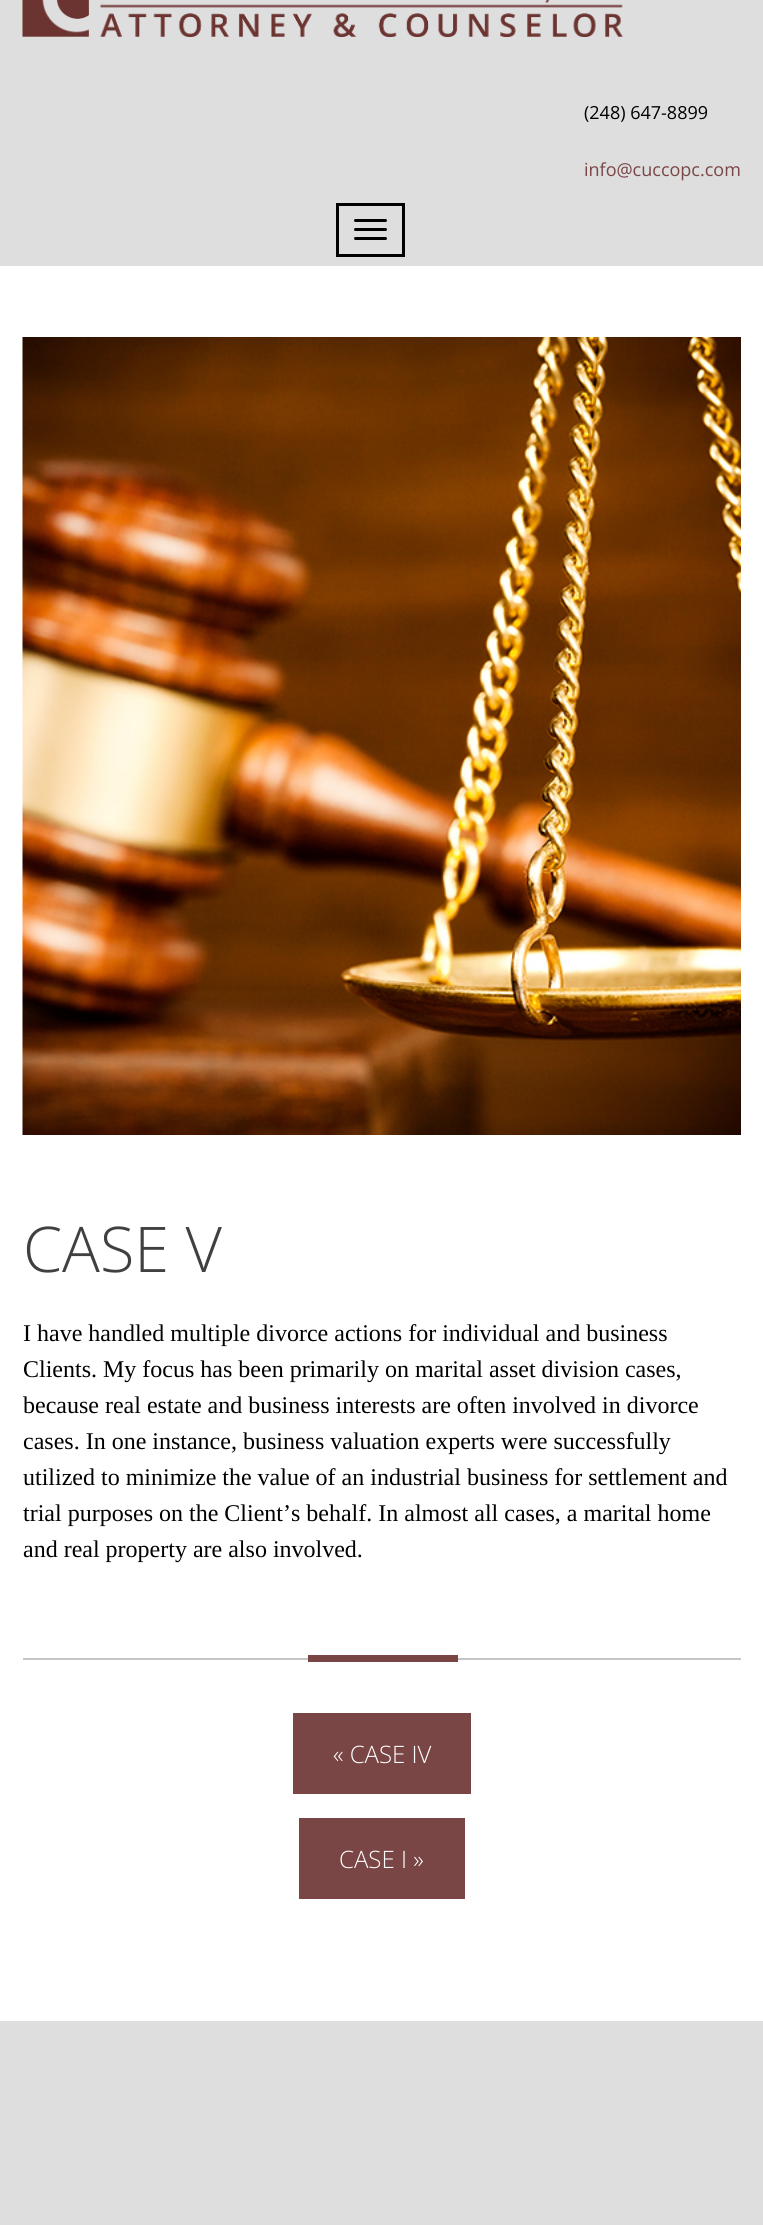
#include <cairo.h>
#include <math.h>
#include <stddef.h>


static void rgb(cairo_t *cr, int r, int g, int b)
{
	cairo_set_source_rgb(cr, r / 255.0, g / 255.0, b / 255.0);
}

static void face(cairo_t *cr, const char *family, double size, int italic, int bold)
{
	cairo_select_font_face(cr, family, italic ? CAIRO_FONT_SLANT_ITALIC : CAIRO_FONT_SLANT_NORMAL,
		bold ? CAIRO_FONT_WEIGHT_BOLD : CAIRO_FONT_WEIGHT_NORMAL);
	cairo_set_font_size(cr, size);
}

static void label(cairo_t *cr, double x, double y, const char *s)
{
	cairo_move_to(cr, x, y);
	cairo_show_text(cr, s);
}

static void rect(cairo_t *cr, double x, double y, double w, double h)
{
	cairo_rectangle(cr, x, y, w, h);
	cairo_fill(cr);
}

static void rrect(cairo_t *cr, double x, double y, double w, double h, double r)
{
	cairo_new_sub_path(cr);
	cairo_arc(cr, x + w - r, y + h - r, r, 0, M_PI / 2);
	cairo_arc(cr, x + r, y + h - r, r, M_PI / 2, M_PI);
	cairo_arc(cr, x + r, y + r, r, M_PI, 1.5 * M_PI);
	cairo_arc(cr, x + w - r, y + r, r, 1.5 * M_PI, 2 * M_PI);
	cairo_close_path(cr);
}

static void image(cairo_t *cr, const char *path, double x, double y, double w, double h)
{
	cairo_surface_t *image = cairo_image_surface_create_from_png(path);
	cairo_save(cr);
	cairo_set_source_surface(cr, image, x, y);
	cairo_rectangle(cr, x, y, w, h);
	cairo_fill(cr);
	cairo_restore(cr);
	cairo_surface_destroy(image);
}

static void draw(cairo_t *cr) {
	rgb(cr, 255, 255, 255);
	cairo_paint(cr);
	rgb(cr, 222, 222, 222);
	rect(cr, 0, 0, 763, 266);
	image(cr, "image0.png", 22, 0, 601, 37);
	face(cr, "Open Sans", 18, 0, 0);
	rgb(cr, 0, 0, 0);
	label(cr, 584, 119, "(248) 647-8899");
	rgb(cr, 121, 69, 69);
	label(cr, 584, 176, "info@cuccopc.com");
	cairo_rectangle(cr, 337.5, 204.5, 66, 51);
	rgb(cr, 0, 0, 0);
	cairo_set_line_width(cr, 3);
	cairo_stroke(cr);
	rrect(cr, 354, 219, 33, 3, 1.5);
	cairo_fill(cr);
	rrect(cr, 354, 228, 33, 3, 1.5);
	cairo_fill(cr);
	rrect(cr, 354, 237, 33, 3, 1.5);
	cairo_fill(cr);
	rgb(cr, 197, 197, 197);
	rect(cr, 23, 1658, 718, 2);
	image(cr, "image1.png", 22, 337, 719, 798);
	face(cr, "Open Sans Light", 63, 0, 0);
	rgb(cr, 64, 64, 64);
	label(cr, 23, 1272, "CASE V");
	face(cr, "Liberation Serif", 24, 0, 0);
	rgb(cr, 0, 0, 0);
	label(cr, 23, 1341, "I have handled multiple divorce actions for individual and business");
	label(cr, 23, 1377, "Clients. My focus has been primarily on marital asset division cases,");
	label(cr, 23, 1413, "because real estate and business interests are often involved in divorce");
	label(cr, 23, 1449, "cases. In one instance, business valuation experts were successfully");
	label(cr, 23, 1485, "utilized to minimize the value of an industrial business for settlement and");
	label(cr, 23, 1521, "trial purposes on the Client’s behalf. In almost all cases, a marital home");
	label(cr, 23, 1557, "and real property are also involved.");
	rgb(cr, 121, 69, 69);
	rect(cr, 308, 1655, 150, 7);
	rect(cr, 293, 1713, 178, 81);
	face(cr, "Open Sans Light", 24, 0, 0);
	rgb(cr, 255, 255, 255);
	label(cr, 333, 1763, "« CASE IV");
	rgb(cr, 121, 69, 69);
	rect(cr, 299, 1818, 166, 81);
	rgb(cr, 255, 255, 255);
	label(cr, 339, 1868, "CASE I »");
	rgb(cr, 222, 222, 222);
	rect(cr, 0, 2021, 763, 204);
}

int main(void) {
	cairo_surface_t *surface = cairo_image_surface_create(CAIRO_FORMAT_RGB24, 763, 2225);
	cairo_t *cr = cairo_create(surface);
	cairo_font_options_t *options = cairo_font_options_create();
	cairo_font_options_set_hint_metrics(options, CAIRO_HINT_METRICS_OFF);
	cairo_font_options_set_hint_style(options, CAIRO_HINT_STYLE_NONE);
	cairo_set_font_options(cr, options);
	cairo_set_miter_limit(cr, 4);
	draw(cr);
	cairo_surface_write_to_png(surface, "render.png");
	cairo_font_options_destroy(options);
	cairo_destroy(cr);
	cairo_surface_destroy(surface);
	return 0;
}
